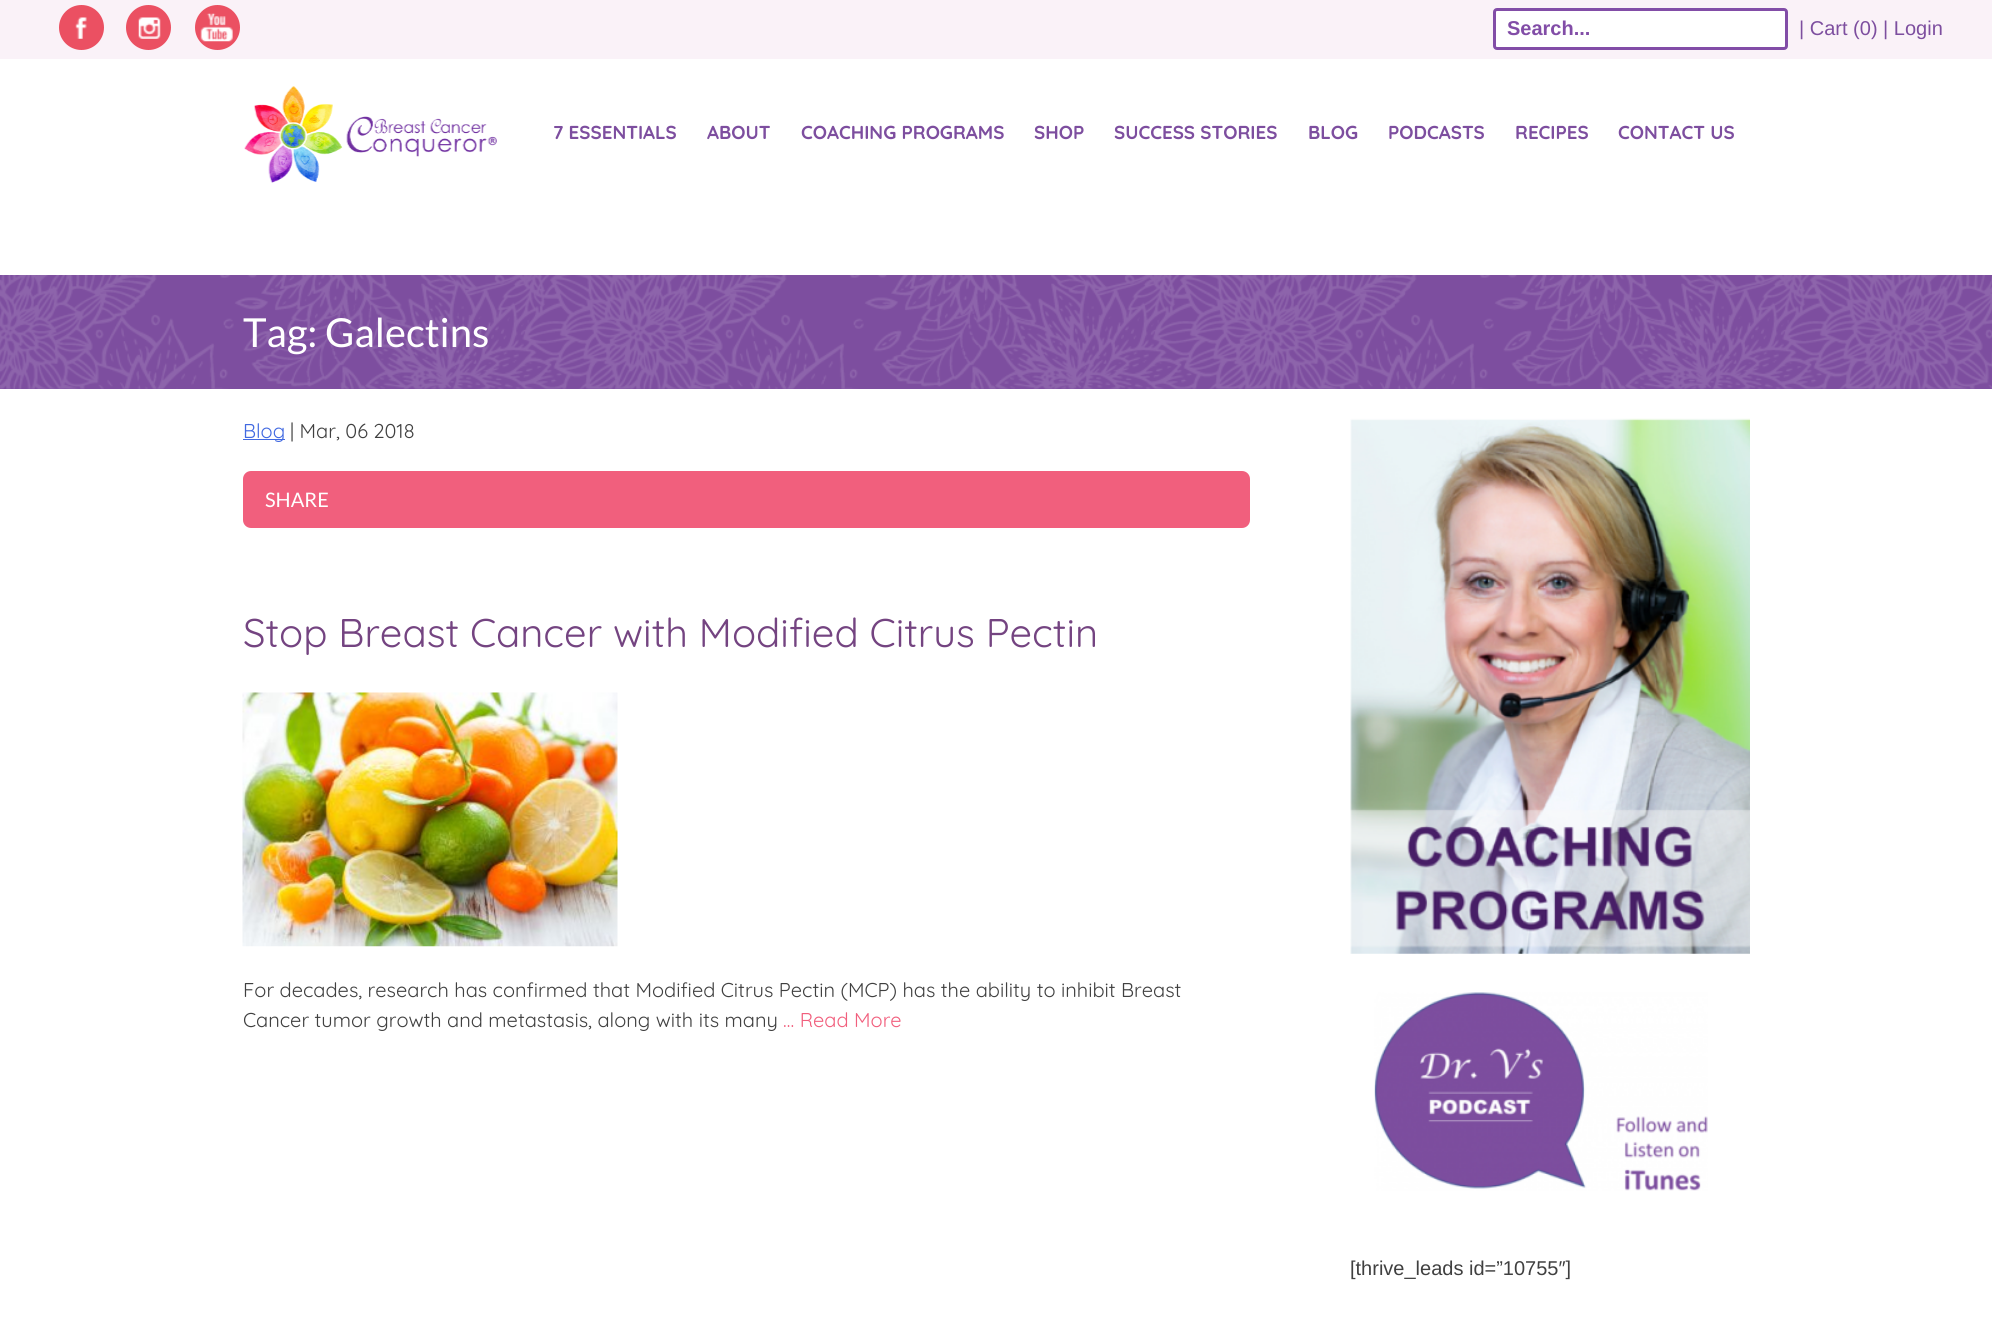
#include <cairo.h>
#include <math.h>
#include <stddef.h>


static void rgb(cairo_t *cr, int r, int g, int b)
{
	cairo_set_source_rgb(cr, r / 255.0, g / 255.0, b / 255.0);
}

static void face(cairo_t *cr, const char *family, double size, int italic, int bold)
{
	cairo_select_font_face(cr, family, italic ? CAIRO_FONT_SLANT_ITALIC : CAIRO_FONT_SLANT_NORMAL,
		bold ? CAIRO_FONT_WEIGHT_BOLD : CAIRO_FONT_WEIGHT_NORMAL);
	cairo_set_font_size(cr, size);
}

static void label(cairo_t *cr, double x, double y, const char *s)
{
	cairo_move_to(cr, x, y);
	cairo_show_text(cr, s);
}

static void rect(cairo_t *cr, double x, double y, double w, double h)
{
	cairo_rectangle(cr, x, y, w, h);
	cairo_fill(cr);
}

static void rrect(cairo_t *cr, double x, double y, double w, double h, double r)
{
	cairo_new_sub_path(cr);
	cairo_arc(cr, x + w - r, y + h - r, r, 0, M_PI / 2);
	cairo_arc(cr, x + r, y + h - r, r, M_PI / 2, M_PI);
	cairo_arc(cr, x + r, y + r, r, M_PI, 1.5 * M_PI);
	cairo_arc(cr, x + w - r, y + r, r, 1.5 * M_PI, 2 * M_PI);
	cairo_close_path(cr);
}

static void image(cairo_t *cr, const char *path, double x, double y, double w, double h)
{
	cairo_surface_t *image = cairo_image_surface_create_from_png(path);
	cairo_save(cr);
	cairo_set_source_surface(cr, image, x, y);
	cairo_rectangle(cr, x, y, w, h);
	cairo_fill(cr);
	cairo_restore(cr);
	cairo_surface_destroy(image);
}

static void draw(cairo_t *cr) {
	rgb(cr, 255, 255, 255);
	cairo_paint(cr);
	rgb(cr, 250, 242, 248);
	rect(cr, 0, 0, 1992, 59);
	rgb(cr, 235, 80, 98);
	cairo_arc(cr, 81.5, 27.5, 22.5, 0, 2 * M_PI);
	cairo_fill(cr);
	image(cr, "image0.png", 75, 17, 12, 22);
	cairo_arc(cr, 148.5, 27.5, 22.5, 0, 2 * M_PI);
	cairo_fill(cr);
	image(cr, "image1.png", 138, 17, 23, 22);
	cairo_arc(cr, 217.5, 27.5, 22.5, 0, 2 * M_PI);
	cairo_fill(cr);
	image(cr, "image2.png", 200, 13, 33, 29);
	rgb(cr, 255, 255, 255);
	rrect(cr, 1494.5, 9.5, 292, 39, 2.5);
	cairo_fill_preserve(cr);
	rgb(cr, 130, 77, 167);
	cairo_set_line_width(cr, 3);
	cairo_stroke(cr);
	face(cr, "Liberation Sans", 20, 0, 1);
	label(cr, 1507, 35, "Search...");
	face(cr, "Liberation Sans", 20, 0, 0);
	rgb(cr, 125, 78, 159);
	label(cr, 1799, 35, "| Cart (0) | Login");
	image(cr, "image3.png", 244, 86, 253, 97);
	face(cr, "Quicksand", 18.75, 0, 1);
	label(cr, 553, 139, "7 ESSENTIALS");
	label(cr, 707, 139, "ABOUT");
	label(cr, 801, 139, "COACHING PROGRAMS");
	label(cr, 1034, 139, "SHOP");
	label(cr, 1114, 139, "SUCCESS STORIES");
	label(cr, 1308, 139, "BLOG");
	label(cr, 1388, 139, "PODCASTS");
	label(cr, 1515, 139, "RECIPES");
	label(cr, 1618, 139, "CONTACT US");
	rect(cr, 0, 275, 1992, 114);
	image(cr, "image4.png", 0, 275, 1992, 114);
	face(cr, "Lato", 40, 0, 0);
	rgb(cr, 255, 255, 255);
	label(cr, 243, 347, "Tag: Galectins");
	rgb(cr, 65, 105, 225);
	rect(cr, 243, 439, 42, 1);
	face(cr, "Quicksand", 20, 0, 0);
	label(cr, 243, 438, "Blog");
	rgb(cr, 64, 64, 64);
	label(cr, 290, 438, "| Mar, 06 2018");
	rgb(cr, 241, 95, 125);
	rrect(cr, 244.5, 472.5, 1004, 54, 6.5);
	cairo_fill_preserve(cr);
	cairo_stroke(cr);
	face(cr, "Lato", 20, 0, 0);
	rgb(cr, 255, 255, 255);
	label(cr, 265, 507, "SHARE");
	face(cr, "Quicksand", 40, 0, 0);
	rgb(cr, 116, 68, 129);
	label(cr, 243, 647, "Stop Breast Cancer with Modified Citrus Pectin");
	image(cr, "image5.png", 242, 692, 376, 255);
	face(cr, "Quicksand", 20, 0, 0);
	rgb(cr, 64, 64, 64);
	label(cr, 243, 997, "For decades, research has confirmed that Modified Citrus Pectin (MCP) has the ability to inhibit Breast");
	label(cr, 243, 1027, "Cancer tumor growth and metastasis, along with its many");
	rgb(cr, 241, 95, 125);
	label(cr, 783, 1027, "… Read More");
	image(cr, "image6.png", 1350, 418, 400, 536);
	image(cr, "image7.png", 1374, 992, 334, 199);
	face(cr, "Liberation Sans", 20, 0, 0);
	rgb(cr, 64, 64, 64);
	label(cr, 1350, 1275, "[thrive_leads id=”10755″]");
}

int main(void) {
	cairo_surface_t *surface = cairo_image_surface_create(CAIRO_FORMAT_RGB24, 1992, 1332);
	cairo_t *cr = cairo_create(surface);
	cairo_font_options_t *options = cairo_font_options_create();
	cairo_font_options_set_hint_metrics(options, CAIRO_HINT_METRICS_OFF);
	cairo_font_options_set_hint_style(options, CAIRO_HINT_STYLE_NONE);
	cairo_set_font_options(cr, options);
	cairo_set_miter_limit(cr, 4);
	draw(cr);
	cairo_surface_write_to_png(surface, "render.png");
	cairo_font_options_destroy(options);
	cairo_destroy(cr);
	cairo_surface_destroy(surface);
	return 0;
}
